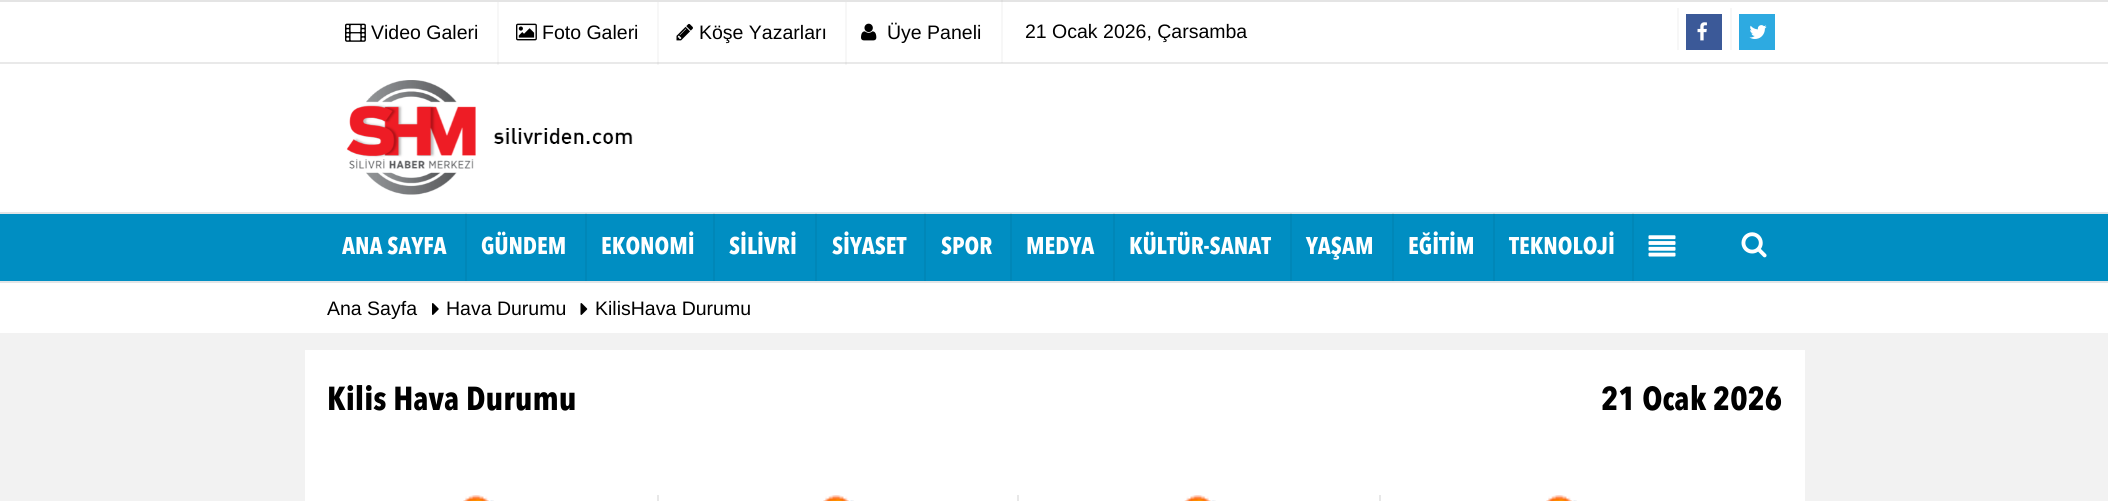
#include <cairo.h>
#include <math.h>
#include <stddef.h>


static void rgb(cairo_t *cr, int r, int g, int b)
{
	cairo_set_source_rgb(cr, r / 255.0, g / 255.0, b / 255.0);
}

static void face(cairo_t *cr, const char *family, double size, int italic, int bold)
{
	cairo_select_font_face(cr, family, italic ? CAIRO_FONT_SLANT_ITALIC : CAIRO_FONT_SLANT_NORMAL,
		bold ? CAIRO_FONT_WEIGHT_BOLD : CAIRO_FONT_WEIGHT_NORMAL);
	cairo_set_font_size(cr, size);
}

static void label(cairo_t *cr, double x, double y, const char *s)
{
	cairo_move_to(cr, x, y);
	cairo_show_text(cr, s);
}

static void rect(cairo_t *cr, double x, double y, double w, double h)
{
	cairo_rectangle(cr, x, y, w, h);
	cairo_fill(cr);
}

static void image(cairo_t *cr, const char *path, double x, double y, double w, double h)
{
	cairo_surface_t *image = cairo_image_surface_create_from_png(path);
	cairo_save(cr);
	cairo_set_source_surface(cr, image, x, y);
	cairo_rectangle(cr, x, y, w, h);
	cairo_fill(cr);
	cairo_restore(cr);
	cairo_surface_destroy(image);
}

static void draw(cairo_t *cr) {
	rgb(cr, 242, 242, 242);
	cairo_paint(cr);
	rgb(cr, 255, 255, 255);
	rect(cr, 0, 2, 2108, 210);
	rgb(cr, 247, 247, 247);
	rect(cr, 1001, 0, 2, 63);
	rect(cr, 845, 2, 2, 63);
	rect(cr, 657, 2, 2, 63);
	rect(cr, 497, 2, 2, 63);
	rgb(cr, 228, 228, 228);
	rect(cr, 0, 0, 2108, 2);
	rgb(cr, 221, 221, 221);
	rect(cr, 1001, 0, 2, 2);
	rgb(cr, 233, 233, 233);
	rect(cr, 0, 62, 2108, 2);
	rgb(cr, 226, 226, 226);
	rect(cr, 1001, 62, 2, 1);
	rect(cr, 845, 62, 2, 2);
	rect(cr, 657, 62, 2, 2);
	rect(cr, 497, 62, 2, 2);
	image(cr, "image0.png", 345, 23, 21, 19);
	face(cr, "Liberation Sans", 19.5, 0, 0);
	rgb(cr, 0, 0, 0);
	label(cr, 371, 39, "Video Galeri");
	image(cr, "image1.png", 516, 23, 21, 18);
	label(cr, 542, 39, "Foto Galeri");
	image(cr, "image2.png", 676, 23, 17, 18);
	label(cr, 699, 39, "Köşe Yazarları");
	image(cr, "image3.png", 861, 23, 16, 18);
	label(cr, 887, 39, "Üye Paneli");
	label(cr, 1025, 38, "21 Ocak 2026, Çarsamba");
	rgb(cr, 247, 247, 247);
	rect(cr, 1677, 8, 2, 42);
	rgb(cr, 59, 89, 152);
	rect(cr, 1686, 14, 36, 36);
	image(cr, "image4.png", 1697, 22, 10, 19);
	rgb(cr, 247, 247, 247);
	rect(cr, 1730, 8, 2, 42);
	rgb(cr, 45, 170, 225);
	rect(cr, 1739, 14, 36, 36);
	image(cr, "image5.png", 1749, 25, 18, 14);
	image(cr, "image6.png", 346, 80, 287, 115);
	rgb(cr, 0, 142, 194);
	rect(cr, 0, 214, 2108, 67);
	rgb(cr, 0, 135, 184);
	rect(cr, 1632, 213, 2, 68);
	rect(cr, 1493, 213, 2, 68);
	rect(cr, 1392, 213, 2, 68);
	rect(cr, 1290, 213, 2, 68);
	rect(cr, 1113, 213, 2, 68);
	rect(cr, 1010, 213, 2, 68);
	rect(cr, 924, 213, 2, 68);
	rect(cr, 815, 213, 2, 68);
	rect(cr, 713, 213, 2, 68);
	rect(cr, 585, 213, 2, 68);
	rect(cr, 465, 213, 2, 68);
	rgb(cr, 226, 229, 231);
	rect(cr, 0, 212, 2108, 2);
	rgb(cr, 215, 218, 219);
	rect(cr, 1632, 213, 2, 1);
	rect(cr, 1493, 213, 2, 1);
	rect(cr, 1392, 213, 2, 1);
	rect(cr, 1290, 213, 2, 1);
	rect(cr, 1113, 213, 2, 1);
	rect(cr, 1010, 213, 2, 1);
	rect(cr, 924, 213, 2, 1);
	rect(cr, 815, 213, 2, 1);
	rect(cr, 713, 213, 2, 1);
	rect(cr, 585, 213, 2, 1);
	rect(cr, 465, 213, 2, 1);
	rgb(cr, 226, 229, 231);
	rect(cr, 0, 281, 2108, 2);
	face(cr, "Avenir Next", 24, 0, 1);
	rgb(cr, 255, 255, 255);
	label(cr, 342, 254, "ANA SAYFA");
	label(cr, 481, 254, "GÜNDEM");
	label(cr, 601, 254, "EKONOMİ");
	label(cr, 729, 254, "SİLİVRİ");
	label(cr, 832, 254, "SİYASET");
	label(cr, 941, 254, "SPOR");
	label(cr, 1026, 254, "MEDYA");
	label(cr, 1129, 254, "KÜLTÜR-SANAT");
	label(cr, 1306, 254, "YAŞAM");
	label(cr, 1408, 254, "EĞİTİM");
	label(cr, 1509, 254, "TEKNOLOJİ");
	image(cr, "image7.png", 1648, 235, 28, 22);
	image(cr, "image8.png", 1741, 232, 26, 26);
	rect(cr, 0, 283, 2108, 50);
	face(cr, "Liberation Sans", 19.5, 0, 0);
	rgb(cr, 0, 0, 0);
	label(cr, 327, 315, "Ana Sayfa");
	image(cr, "image9.png", 432, 303, 7, 12);
	label(cr, 446, 315, "Hava Durumu");
	image(cr, "image10.png", 580, 303, 8, 12);
	label(cr, 595, 315, "KilisHava Durumu");
	rgb(cr, 255, 255, 255);
	rect(cr, 305, 350, 1500, 151);
	face(cr, "Avenir Next", 33, 0, 1);
	rgb(cr, 0, 0, 0);
	label(cr, 327, 410, "Kilis Hava Durumu");
	label(cr, 1601, 410, "21 Ocak 2026");
	rgb(cr, 232, 232, 232);
	rect(cr, 657, 495, 2, 6);
	image(cr, "image11.png", 463, 495, 31, 6);
	rect(cr, 1017, 495, 2, 6);
	image(cr, "image11.png", 823, 495, 31, 6);
	rect(cr, 1379, 495, 2, 6);
	image(cr, "image12.png", 1184, 495, 32, 6);
	image(cr, "image11.png", 1546, 495, 31, 6);
}

int main(void) {
	cairo_surface_t *surface = cairo_image_surface_create(CAIRO_FORMAT_RGB24, 2108, 501);
	cairo_t *cr = cairo_create(surface);
	cairo_font_options_t *options = cairo_font_options_create();
	cairo_font_options_set_hint_metrics(options, CAIRO_HINT_METRICS_OFF);
	cairo_font_options_set_hint_style(options, CAIRO_HINT_STYLE_NONE);
	cairo_set_font_options(cr, options);
	cairo_set_miter_limit(cr, 4);
	draw(cr);
	cairo_surface_write_to_png(surface, "render.png");
	cairo_font_options_destroy(options);
	cairo_destroy(cr);
	cairo_surface_destroy(surface);
	return 0;
}
